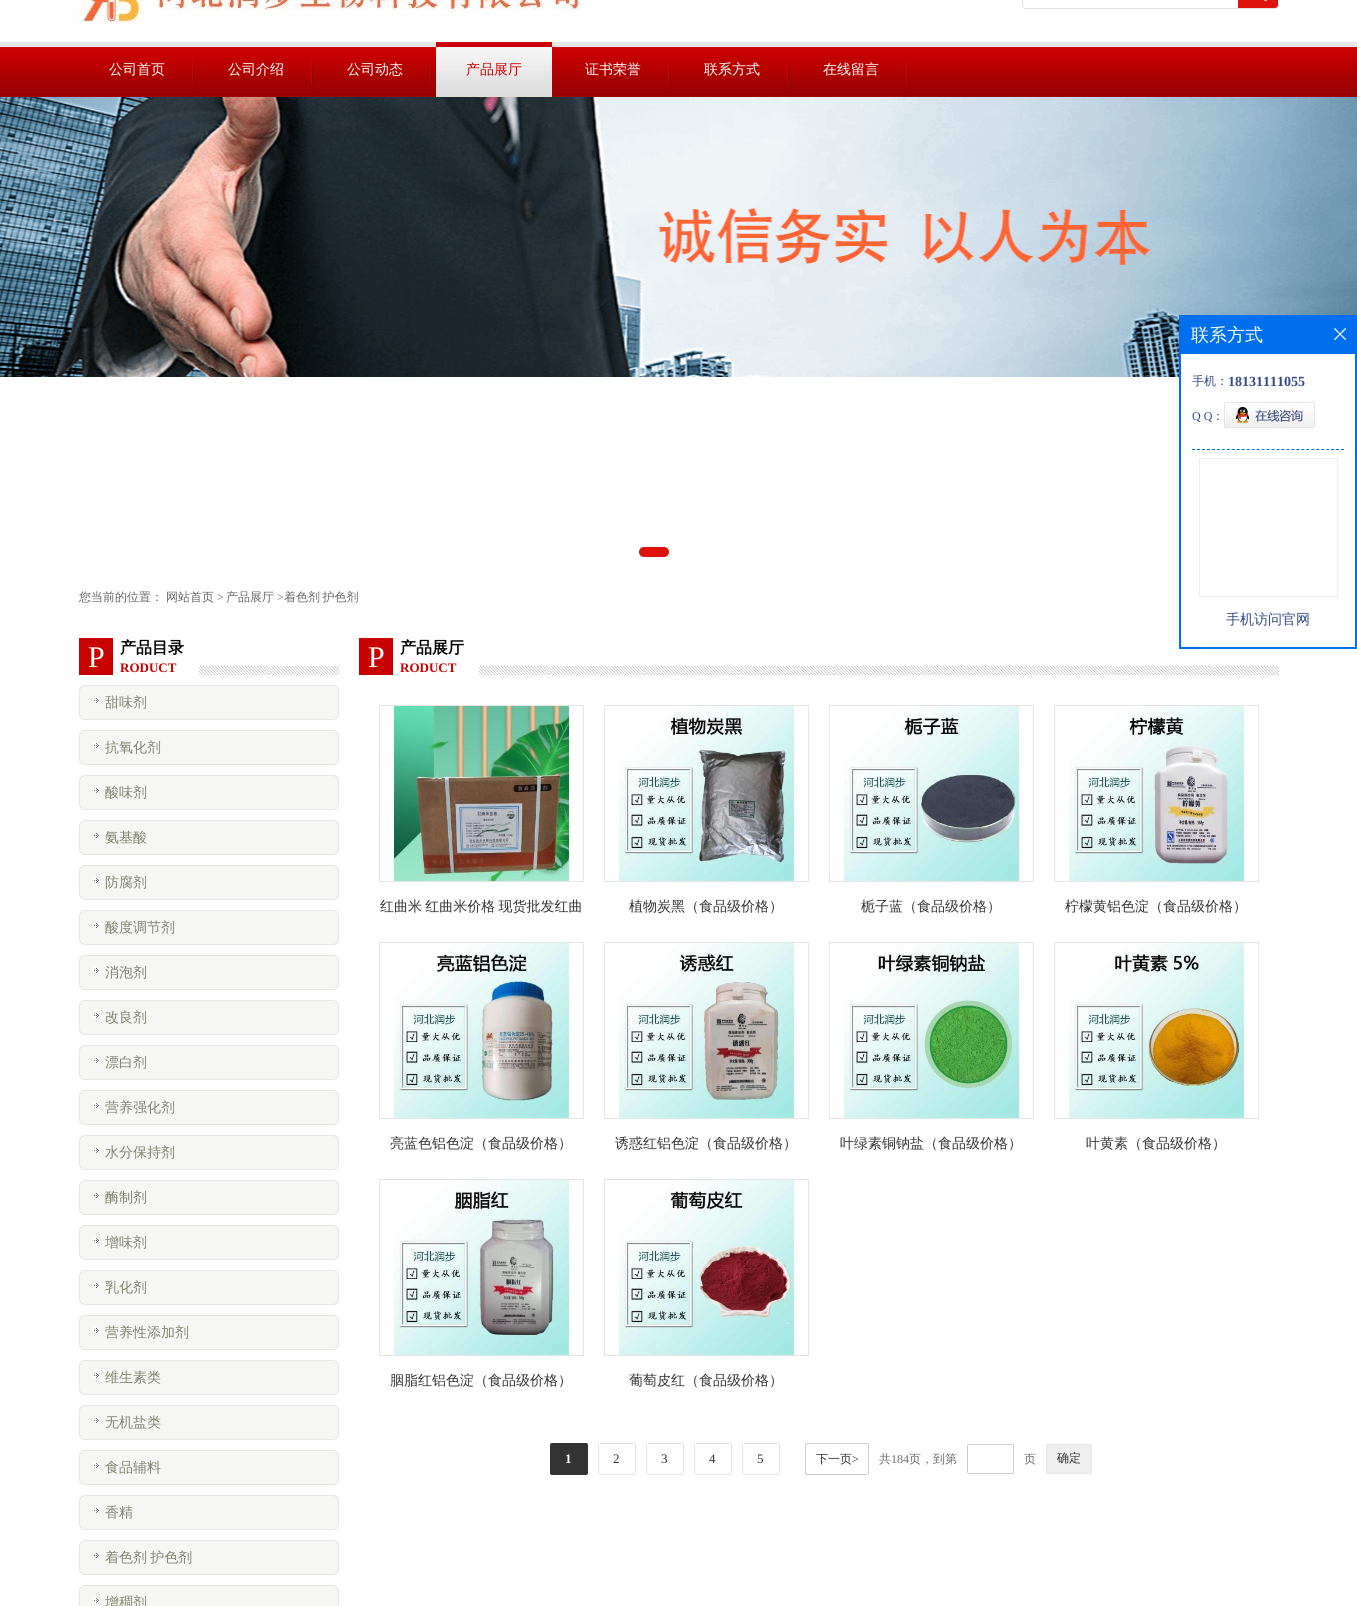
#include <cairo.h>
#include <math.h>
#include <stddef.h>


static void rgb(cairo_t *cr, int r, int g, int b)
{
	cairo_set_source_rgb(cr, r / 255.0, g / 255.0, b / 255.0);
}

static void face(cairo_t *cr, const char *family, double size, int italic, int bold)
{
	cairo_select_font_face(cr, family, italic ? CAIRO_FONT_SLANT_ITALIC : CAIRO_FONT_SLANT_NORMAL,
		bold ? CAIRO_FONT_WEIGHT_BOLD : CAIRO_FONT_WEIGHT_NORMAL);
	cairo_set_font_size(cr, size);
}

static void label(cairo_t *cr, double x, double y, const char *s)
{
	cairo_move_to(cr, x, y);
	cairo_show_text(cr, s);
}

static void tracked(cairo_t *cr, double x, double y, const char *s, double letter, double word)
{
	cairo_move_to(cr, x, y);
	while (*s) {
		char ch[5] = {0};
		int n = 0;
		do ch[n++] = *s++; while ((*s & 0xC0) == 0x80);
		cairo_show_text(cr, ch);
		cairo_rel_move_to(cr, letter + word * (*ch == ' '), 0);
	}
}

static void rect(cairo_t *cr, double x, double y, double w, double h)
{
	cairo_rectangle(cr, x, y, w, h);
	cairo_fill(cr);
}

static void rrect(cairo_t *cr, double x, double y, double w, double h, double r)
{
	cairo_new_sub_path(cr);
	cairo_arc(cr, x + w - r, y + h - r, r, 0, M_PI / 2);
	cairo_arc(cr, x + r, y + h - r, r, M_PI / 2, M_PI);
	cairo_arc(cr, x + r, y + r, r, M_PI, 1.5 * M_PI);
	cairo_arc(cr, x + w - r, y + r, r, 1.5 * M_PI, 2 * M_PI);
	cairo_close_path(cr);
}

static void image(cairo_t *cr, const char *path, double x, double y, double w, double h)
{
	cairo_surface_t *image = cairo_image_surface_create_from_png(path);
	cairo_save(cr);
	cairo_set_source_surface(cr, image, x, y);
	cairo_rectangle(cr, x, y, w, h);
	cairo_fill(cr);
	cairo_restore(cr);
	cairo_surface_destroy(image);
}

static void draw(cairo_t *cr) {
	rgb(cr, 255, 255, 255);
	cairo_paint(cr);
	image(cr, "image0.png", 79, 0, 500, 22);
	rrect(cr, 1022.5, -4.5, 256, 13, 3.5);
	rgb(cr, 223, 225, 227);
	cairo_set_line_width(cr, 1);
	cairo_stroke(cr);
	rgb(cr, 255, 255, 255);
	cairo_new_path(cr);
	cairo_move_to(cr, 1026, -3);
	cairo_line_to(cr, 1238, -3);
	cairo_line_to(cr, 1238, 8);
	cairo_line_to(cr, 1026, 8);
	cairo_curve_to(cr, 1024.5, 8, 1023, 6.5, 1023, 5);
	cairo_line_to(cr, 1023, 0);
	cairo_curve_to(cr, 1023, -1.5, 1024.5, -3, 1026, -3);
	cairo_close_path(cr);
	cairo_fill(cr);
	rgb(cr, 222, 19, 12);
	cairo_new_path(cr);
	cairo_move_to(cr, 1238, -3);
	cairo_line_to(cr, 1275, -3);
	cairo_curve_to(cr, 1276.5, -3, 1278, -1.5, 1278, 0);
	cairo_line_to(cr, 1278, 5);
	cairo_curve_to(cr, 1278, 6.5, 1276.5, 8, 1275, 8);
	cairo_line_to(cr, 1238, 8);
	cairo_close_path(cr);
	cairo_fill(cr);
	image(cr, "image1.png", 1264, 0, 3, 1);
	image(cr, "image2.png", 0, 42, 1357, 55);
	image(cr, "image3.png", 192, 52, 3, 38);
	face(cr, "WenQuanYi Zen Hei Medium", 14, 0, 0);
	rgb(cr, 255, 255, 255);
	label(cr, 109, 74, "公司首页");
	image(cr, "image3.png", 311, 52, 3, 38);
	label(cr, 228, 74, "公司介绍");
	image(cr, "image3.png", 430, 52, 3, 38);
	label(cr, 347, 74, "公司动态");
	image(cr, "image4.png", 436, 42, 116, 55);
	rgb(cr, 199, 2, 0);
	label(cr, 466, 74, "产品展厅");
	image(cr, "image3.png", 668, 52, 3, 38);
	rgb(cr, 255, 255, 255);
	label(cr, 585, 74, "证书荣誉");
	image(cr, "image3.png", 787, 52, 3, 38);
	label(cr, 704, 74, "联系方式");
	image(cr, "image3.png", 906, 52, 3, 38);
	label(cr, 823, 74, "在线留言");
	image(cr, "image5.png", 0, 97, 1357, 280);
	rgb(cr, 222, 19, 12);
	rrect(cr, 639, 547, 30, 10, 5);
	cairo_fill(cr);
	face(cr, "WenQuanYi Zen Hei Medium", 12, 0, 0);
	rgb(cr, 102, 102, 102);
	label(cr, 79, 601, "您当前的位置：");
	label(cr, 166, 601, "网站首页");
	face(cr, "Liberation Serif", 12, 0, 0);
	label(cr, 217, 601, ">");
	face(cr, "WenQuanYi Zen Hei Medium", 12, 0, 0);
	label(cr, 226, 601, "产品展厅");
	face(cr, "Liberation Serif", 12, 0, 0);
	label(cr, 277, 601, ">");
	face(cr, "WenQuanYi Zen Hei Medium", 12, 0, 0);
	tracked(cr, 284, 601, "着色剂 护色剂", 0, -1);
	rgb(cr, 0, 111, 237);
	rect(cr, 1179, 315, 178, 334);
	face(cr, "WenQuanYi Zen Hei Medium", 18, 0, 0);
	rgb(cr, 255, 255, 255);
	label(cr, 1191, 341, "联系方式");
	image(cr, "image6.png", 1334, 328, 12, 12);
	rect(cr, 1181, 354, 174, 293);
	cairo_new_path(cr);
	cairo_move_to(cr, 1192, 449.5);
	cairo_line_to(cr, 1344, 449.5);
	rgb(cr, 0, 111, 237);
	cairo_set_dash(cr, (double[]){3, 1.97}, 2, 0);
	cairo_stroke(cr);
	face(cr, "WenQuanYi Zen Hei Medium", 12, 0, 0);
	rgb(cr, 49, 73, 133);
	label(cr, 1192, 385, "手机：");
	face(cr, "Liberation Serif", 14, 0, 1);
	label(cr, 1228, 386, "18131111055");
	face(cr, "Liberation Serif", 12, 0, 0);
	label(cr, 1192, 420, "Q Q");
	face(cr, "WenQuanYi Zen Hei Medium", 12, 0, 0);
	label(cr, 1212, 420, "：");
	image(cr, "image7.png", 1224, 402, 91, 26);
	cairo_rectangle(cr, 1199.5, 458.5, 138, 138);
	rgb(cr, 238, 238, 238);
	cairo_set_dash(cr, NULL, 0, 0);
	cairo_stroke(cr);
	face(cr, "WenQuanYi Zen Hei Medium", 14, 0, 0);
	rgb(cr, 49, 73, 133);
	label(cr, 1226, 624, "手机访问官网");
	image(cr, "image8.png", 199, 666, 140, 9);
	rgb(cr, 199, 2, 0);
	rect(cr, 79, 638, 34, 37);
	face(cr, "Liberation Serif", 30, 0, 0);
	rgb(cr, 255, 255, 255);
	label(cr, 88, 667, "P");
	face(cr, "WenQuanYi Zen Hei", 16, 0, 1);
	rgb(cr, 0, 0, 0);
	label(cr, 120, 653, "产品目录");
	face(cr, "Liberation Serif", 13, 0, 1);
	rgb(cr, 199, 2, 0);
	label(cr, 120, 672, "RODUCT");
	rgb(cr, 246, 246, 244);
	rrect(cr, 79.5, 685.5, 259, 34, 5.5);
	cairo_fill_preserve(cr);
	rgb(cr, 229, 229, 229);
	cairo_stroke(cr);
	image(cr, "image9.png", 93, 696, 6, 7);
	face(cr, "WenQuanYi Zen Hei Medium", 14, 0, 0);
	rgb(cr, 130, 132, 111);
	label(cr, 105, 707, "甜味剂");
	rgb(cr, 246, 246, 244);
	rrect(cr, 79.5, 730.5, 259, 34, 5.5);
	cairo_fill_preserve(cr);
	rgb(cr, 229, 229, 229);
	cairo_stroke(cr);
	image(cr, "image9.png", 93, 741, 6, 7);
	rgb(cr, 130, 132, 111);
	label(cr, 105, 752, "抗氧化剂");
	rgb(cr, 246, 246, 244);
	rrect(cr, 79.5, 775.5, 259, 34, 5.5);
	cairo_fill_preserve(cr);
	rgb(cr, 229, 229, 229);
	cairo_stroke(cr);
	image(cr, "image9.png", 93, 786, 6, 7);
	rgb(cr, 130, 132, 111);
	label(cr, 105, 797, "酸味剂");
	rgb(cr, 246, 246, 244);
	rrect(cr, 79.5, 820.5, 259, 34, 5.5);
	cairo_fill_preserve(cr);
	rgb(cr, 229, 229, 229);
	cairo_stroke(cr);
	image(cr, "image9.png", 93, 831, 6, 7);
	rgb(cr, 130, 132, 111);
	label(cr, 105, 842, "氨基酸");
	rgb(cr, 246, 246, 244);
	rrect(cr, 79.5, 865.5, 259, 34, 5.5);
	cairo_fill_preserve(cr);
	rgb(cr, 229, 229, 229);
	cairo_stroke(cr);
	image(cr, "image9.png", 93, 876, 6, 7);
	rgb(cr, 130, 132, 111);
	label(cr, 105, 887, "防腐剂");
	rgb(cr, 246, 246, 244);
	rrect(cr, 79.5, 910.5, 259, 34, 5.5);
	cairo_fill_preserve(cr);
	rgb(cr, 229, 229, 229);
	cairo_stroke(cr);
	image(cr, "image9.png", 93, 921, 6, 7);
	rgb(cr, 130, 132, 111);
	label(cr, 105, 932, "酸度调节剂");
	rgb(cr, 246, 246, 244);
	rrect(cr, 79.5, 955.5, 259, 34, 5.5);
	cairo_fill_preserve(cr);
	rgb(cr, 229, 229, 229);
	cairo_stroke(cr);
	image(cr, "image9.png", 93, 966, 6, 7);
	rgb(cr, 130, 132, 111);
	label(cr, 105, 977, "消泡剂");
	rgb(cr, 246, 246, 244);
	rrect(cr, 79.5, 1000.5, 259, 34, 5.5);
	cairo_fill_preserve(cr);
	rgb(cr, 229, 229, 229);
	cairo_stroke(cr);
	image(cr, "image9.png", 93, 1011, 6, 7);
	rgb(cr, 130, 132, 111);
	label(cr, 105, 1022, "改良剂");
	rgb(cr, 246, 246, 244);
	rrect(cr, 79.5, 1045.5, 259, 34, 5.5);
	cairo_fill_preserve(cr);
	rgb(cr, 229, 229, 229);
	cairo_stroke(cr);
	image(cr, "image9.png", 93, 1056, 6, 7);
	rgb(cr, 130, 132, 111);
	label(cr, 105, 1067, "漂白剂");
	rgb(cr, 246, 246, 244);
	rrect(cr, 79.5, 1090.5, 259, 34, 5.5);
	cairo_fill_preserve(cr);
	rgb(cr, 229, 229, 229);
	cairo_stroke(cr);
	image(cr, "image9.png", 93, 1101, 6, 7);
	rgb(cr, 130, 132, 111);
	label(cr, 105, 1112, "营养强化剂");
	rgb(cr, 246, 246, 244);
	rrect(cr, 79.5, 1135.5, 259, 34, 5.5);
	cairo_fill_preserve(cr);
	rgb(cr, 229, 229, 229);
	cairo_stroke(cr);
	image(cr, "image9.png", 93, 1146, 6, 7);
	rgb(cr, 130, 132, 111);
	label(cr, 105, 1157, "水分保持剂");
	rgb(cr, 246, 246, 244);
	rrect(cr, 79.5, 1180.5, 259, 34, 5.5);
	cairo_fill_preserve(cr);
	rgb(cr, 229, 229, 229);
	cairo_stroke(cr);
	image(cr, "image9.png", 93, 1191, 6, 7);
	rgb(cr, 130, 132, 111);
	label(cr, 105, 1202, "酶制剂");
	rgb(cr, 246, 246, 244);
	rrect(cr, 79.5, 1225.5, 259, 34, 5.5);
	cairo_fill_preserve(cr);
	rgb(cr, 229, 229, 229);
	cairo_stroke(cr);
	image(cr, "image9.png", 93, 1236, 6, 7);
	rgb(cr, 130, 132, 111);
	label(cr, 105, 1247, "增味剂");
	rgb(cr, 246, 246, 244);
	rrect(cr, 79.5, 1270.5, 259, 34, 5.5);
	cairo_fill_preserve(cr);
	rgb(cr, 229, 229, 229);
	cairo_stroke(cr);
	image(cr, "image9.png", 93, 1281, 6, 7);
	rgb(cr, 130, 132, 111);
	label(cr, 105, 1292, "乳化剂");
	rgb(cr, 246, 246, 244);
	rrect(cr, 79.5, 1315.5, 259, 34, 5.5);
	cairo_fill_preserve(cr);
	rgb(cr, 229, 229, 229);
	cairo_stroke(cr);
	image(cr, "image9.png", 93, 1326, 6, 7);
	rgb(cr, 130, 132, 111);
	label(cr, 105, 1337, "营养性添加剂");
	rgb(cr, 246, 246, 244);
	rrect(cr, 79.5, 1360.5, 259, 34, 5.5);
	cairo_fill_preserve(cr);
	rgb(cr, 229, 229, 229);
	cairo_stroke(cr);
	image(cr, "image9.png", 93, 1371, 6, 7);
	rgb(cr, 130, 132, 111);
	label(cr, 105, 1382, "维生素类");
	rgb(cr, 246, 246, 244);
	rrect(cr, 79.5, 1405.5, 259, 34, 5.5);
	cairo_fill_preserve(cr);
	rgb(cr, 229, 229, 229);
	cairo_stroke(cr);
	image(cr, "image9.png", 93, 1416, 6, 7);
	rgb(cr, 130, 132, 111);
	label(cr, 105, 1427, "无机盐类");
	rgb(cr, 246, 246, 244);
	rrect(cr, 79.5, 1450.5, 259, 34, 5.5);
	cairo_fill_preserve(cr);
	rgb(cr, 229, 229, 229);
	cairo_stroke(cr);
	image(cr, "image9.png", 93, 1461, 6, 7);
	rgb(cr, 130, 132, 111);
	label(cr, 105, 1472, "食品辅料");
	rgb(cr, 246, 246, 244);
	rrect(cr, 79.5, 1495.5, 259, 34, 5.5);
	cairo_fill_preserve(cr);
	rgb(cr, 229, 229, 229);
	cairo_stroke(cr);
	image(cr, "image9.png", 93, 1506, 6, 7);
	rgb(cr, 130, 132, 111);
	label(cr, 105, 1517, "香精");
	rgb(cr, 246, 246, 244);
	rrect(cr, 79.5, 1540.5, 259, 34, 5.5);
	cairo_fill_preserve(cr);
	rgb(cr, 229, 229, 229);
	cairo_stroke(cr);
	image(cr, "image9.png", 93, 1551, 6, 7);
	rgb(cr, 130, 132, 111);
	tracked(cr, 105, 1562, "着色剂 护色剂", 0, -1);
	rgb(cr, 246, 246, 244);
	rrect(cr, 79, 1585, 260, 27, 6);
	cairo_fill(cr);
	rgb(cr, 229, 229, 229);
	cairo_set_fill_rule(cr, CAIRO_FILL_RULE_EVEN_ODD);
	cairo_new_path(cr);
	cairo_move_to(cr, 85, 1585);
	cairo_line_to(cr, 333, 1585);
	cairo_curve_to(cr, 336, 1585, 339, 1588, 339, 1591);
	cairo_line_to(cr, 339, 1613);
	cairo_curve_to(cr, 339, 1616, 336, 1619, 333, 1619);
	cairo_line_to(cr, 85, 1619);
	cairo_curve_to(cr, 82, 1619, 79, 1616, 79, 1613);
	cairo_line_to(cr, 79, 1591);
	cairo_curve_to(cr, 79, 1588, 82, 1585, 85, 1585);
	cairo_close_path(cr);
	cairo_move_to(cr, 85, 1586);
	cairo_line_to(cr, 333, 1586);
	cairo_curve_to(cr, 336, 1586, 338, 1588, 338, 1591);
	cairo_line_to(cr, 338, 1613);
	cairo_curve_to(cr, 338, 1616, 336, 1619, 333, 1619);
	cairo_line_to(cr, 85, 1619);
	cairo_curve_to(cr, 82, 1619, 80, 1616, 80, 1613);
	cairo_line_to(cr, 80, 1591);
	cairo_curve_to(cr, 80, 1588, 82, 1586, 85, 1586);
	cairo_close_path(cr);
	cairo_fill(cr);
	image(cr, "image9.png", 93, 1596, 6, 7);
	rgb(cr, 130, 132, 111);
	label(cr, 105, 1607, "增稠剂");
	image(cr, "image10.png", 479, 666, 800, 9);
	rgb(cr, 199, 2, 0);
	rect(cr, 359, 638, 34, 37);
	face(cr, "Liberation Serif", 30, 0, 0);
	rgb(cr, 255, 255, 255);
	label(cr, 368, 667, "P");
	face(cr, "WenQuanYi Zen Hei", 16, 0, 1);
	rgb(cr, 0, 0, 0);
	label(cr, 400, 653, "产品展厅");
	face(cr, "Liberation Serif", 13, 0, 1);
	rgb(cr, 199, 2, 0);
	label(cr, 400, 672, "RODUCT");
	cairo_rectangle(cr, 379.5, 705.5, 204, 176);
	rgb(cr, 229, 229, 229);
	cairo_stroke(cr);
	image(cr, "image11.png", 394, 706, 175, 175);
	face(cr, "WenQuanYi Zen Hei Medium", 14, 0, 0);
	rgb(cr, 51, 51, 51);
	tracked(cr, 380, 911, "红曲米 红曲米价格 现货批发红曲", 0, -1);
	cairo_rectangle(cr, 604.5, 705.5, 204, 176);
	rgb(cr, 229, 229, 229);
	cairo_stroke(cr);
	image(cr, "image12.png", 619, 706, 175, 175);
	rgb(cr, 51, 51, 51);
	label(cr, 629, 911, "植物炭黑（食品级价格）");
	cairo_rectangle(cr, 829.5, 705.5, 204, 176);
	rgb(cr, 229, 229, 229);
	cairo_stroke(cr);
	image(cr, "image13.png", 844, 706, 175, 175);
	rgb(cr, 51, 51, 51);
	label(cr, 861, 911, "栀子蓝（食品级价格）");
	cairo_rectangle(cr, 1054.5, 705.5, 204, 176);
	rgb(cr, 229, 229, 229);
	cairo_stroke(cr);
	image(cr, "image14.png", 1069, 706, 175, 175);
	rgb(cr, 51, 51, 51);
	label(cr, 1065, 911, "柠檬黄铝色淀（食品级价格）");
	cairo_rectangle(cr, 379.5, 942.5, 204, 176);
	rgb(cr, 229, 229, 229);
	cairo_stroke(cr);
	image(cr, "image15.png", 394, 943, 175, 175);
	rgb(cr, 51, 51, 51);
	label(cr, 390, 1148, "亮蓝色铝色淀（食品级价格）");
	cairo_rectangle(cr, 604.5, 942.5, 204, 176);
	rgb(cr, 229, 229, 229);
	cairo_stroke(cr);
	image(cr, "image16.png", 619, 943, 175, 175);
	rgb(cr, 51, 51, 51);
	label(cr, 615, 1148, "诱惑红铝色淀（食品级价格）");
	cairo_rectangle(cr, 829.5, 942.5, 204, 176);
	rgb(cr, 229, 229, 229);
	cairo_stroke(cr);
	image(cr, "image17.png", 844, 943, 175, 175);
	rgb(cr, 51, 51, 51);
	label(cr, 840, 1148, "叶绿素铜钠盐（食品级价格）");
	cairo_rectangle(cr, 1054.5, 942.5, 204, 176);
	rgb(cr, 229, 229, 229);
	cairo_stroke(cr);
	image(cr, "image18.png", 1069, 943, 175, 175);
	rgb(cr, 51, 51, 51);
	label(cr, 1086, 1148, "叶黄素（食品级价格）");
	cairo_rectangle(cr, 379.5, 1179.5, 204, 176);
	rgb(cr, 229, 229, 229);
	cairo_stroke(cr);
	image(cr, "image19.png", 394, 1180, 175, 175);
	rgb(cr, 51, 51, 51);
	label(cr, 390, 1385, "胭脂红铝色淀（食品级价格）");
	cairo_rectangle(cr, 604.5, 1179.5, 204, 176);
	rgb(cr, 229, 229, 229);
	cairo_stroke(cr);
	image(cr, "image20.png", 619, 1180, 175, 175);
	rgb(cr, 51, 51, 51);
	label(cr, 629, 1385, "葡萄皮红（食品级价格）");
	rrect(cr, 550.5, 1443.5, 37, 31, 1.5);
	cairo_fill_preserve(cr);
	cairo_stroke(cr);
	face(cr, "Liberation Serif", 13, 0, 1);
	rgb(cr, 255, 255, 255);
	label(cr, 565, 1463, "1");
	rrect(cr, 598.5, 1443.5, 37, 31, 1.5);
	rgb(cr, 229, 229, 229);
	cairo_stroke(cr);
	face(cr, "Liberation Serif", 13, 0, 0);
	rgb(cr, 51, 51, 51);
	label(cr, 613, 1463, "2");
	rrect(cr, 646.5, 1443.5, 37, 31, 1.5);
	rgb(cr, 229, 229, 229);
	cairo_stroke(cr);
	rgb(cr, 51, 51, 51);
	label(cr, 661, 1463, "3");
	rrect(cr, 694.5, 1443.5, 37, 31, 1.5);
	rgb(cr, 229, 229, 229);
	cairo_stroke(cr);
	rgb(cr, 51, 51, 51);
	label(cr, 709, 1463, "4");
	rrect(cr, 742.5, 1443.5, 37, 31, 1.5);
	rgb(cr, 229, 229, 229);
	cairo_stroke(cr);
	rgb(cr, 51, 51, 51);
	label(cr, 757, 1463, "5");
	rrect(cr, 805.5, 1443.5, 63, 31, 1.5);
	rgb(cr, 204, 204, 204);
	cairo_stroke(cr);
	face(cr, "WenQuanYi Zen Hei Medium", 12, 0, 0);
	rgb(cr, 51, 51, 51);
	label(cr, 816, 1463, "下一页");
	face(cr, "Liberation Serif", 12, 0, 0);
	label(cr, 852, 1463, ">");
	face(cr, "WenQuanYi Zen Hei Medium", 12, 0, 0);
	rgb(cr, 109, 109, 109);
	label(cr, 879, 1463, "共");
	face(cr, "Liberation Serif", 12, 0, 0);
	label(cr, 891, 1463, "184");
	face(cr, "WenQuanYi Zen Hei Medium", 12, 0, 0);
	label(cr, 909, 1463, "页，到第");
	rrect(cr, 967.5, 1444.5, 46, 29, 1.5);
	rgb(cr, 204, 204, 204);
	cairo_stroke(cr);
	rgb(cr, 109, 109, 109);
	label(cr, 1024, 1463, "页");
	rgb(cr, 239, 239, 239);
	rrect(cr, 1046.5, 1444.5, 45, 29, 1.5);
	cairo_fill_preserve(cr);
	rgb(cr, 229, 229, 229);
	cairo_stroke(cr);
	rgb(cr, 51, 51, 51);
	label(cr, 1057, 1462, "确定");
}

int main(void) {
	cairo_surface_t *surface = cairo_image_surface_create(CAIRO_FORMAT_RGB24, 1357, 1606);
	cairo_t *cr = cairo_create(surface);
	cairo_font_options_t *options = cairo_font_options_create();
	cairo_font_options_set_hint_metrics(options, CAIRO_HINT_METRICS_OFF);
	cairo_font_options_set_hint_style(options, CAIRO_HINT_STYLE_NONE);
	cairo_set_font_options(cr, options);
	cairo_set_miter_limit(cr, 4);
	draw(cr);
	cairo_surface_write_to_png(surface, "render.png");
	cairo_font_options_destroy(options);
	cairo_destroy(cr);
	cairo_surface_destroy(surface);
	return 0;
}
